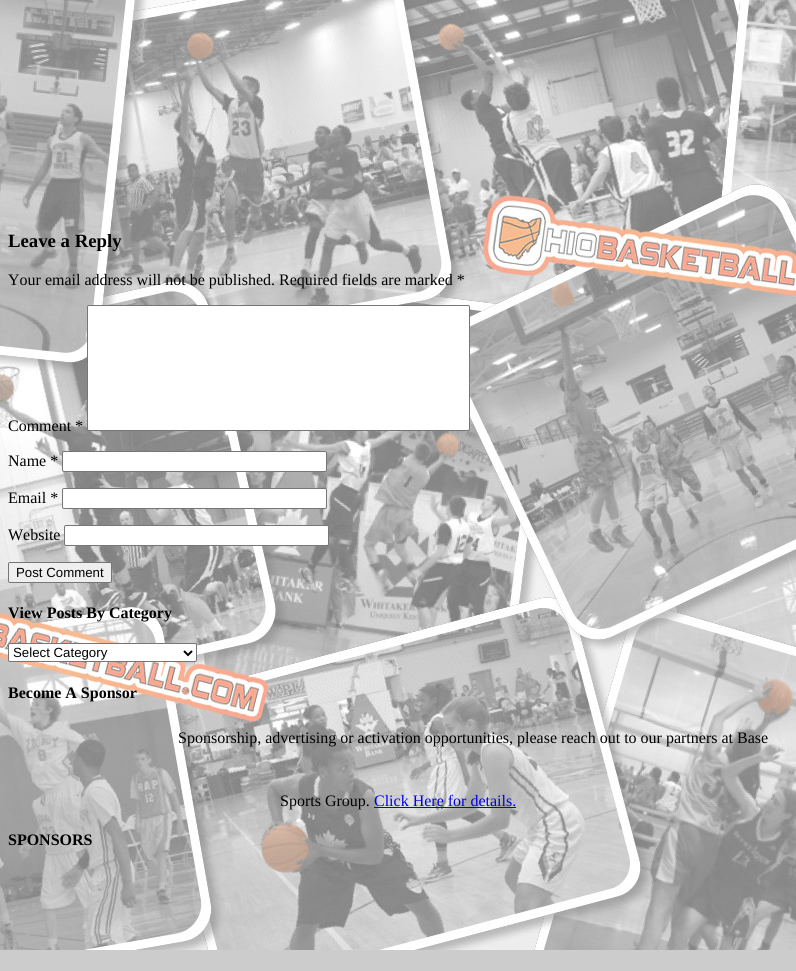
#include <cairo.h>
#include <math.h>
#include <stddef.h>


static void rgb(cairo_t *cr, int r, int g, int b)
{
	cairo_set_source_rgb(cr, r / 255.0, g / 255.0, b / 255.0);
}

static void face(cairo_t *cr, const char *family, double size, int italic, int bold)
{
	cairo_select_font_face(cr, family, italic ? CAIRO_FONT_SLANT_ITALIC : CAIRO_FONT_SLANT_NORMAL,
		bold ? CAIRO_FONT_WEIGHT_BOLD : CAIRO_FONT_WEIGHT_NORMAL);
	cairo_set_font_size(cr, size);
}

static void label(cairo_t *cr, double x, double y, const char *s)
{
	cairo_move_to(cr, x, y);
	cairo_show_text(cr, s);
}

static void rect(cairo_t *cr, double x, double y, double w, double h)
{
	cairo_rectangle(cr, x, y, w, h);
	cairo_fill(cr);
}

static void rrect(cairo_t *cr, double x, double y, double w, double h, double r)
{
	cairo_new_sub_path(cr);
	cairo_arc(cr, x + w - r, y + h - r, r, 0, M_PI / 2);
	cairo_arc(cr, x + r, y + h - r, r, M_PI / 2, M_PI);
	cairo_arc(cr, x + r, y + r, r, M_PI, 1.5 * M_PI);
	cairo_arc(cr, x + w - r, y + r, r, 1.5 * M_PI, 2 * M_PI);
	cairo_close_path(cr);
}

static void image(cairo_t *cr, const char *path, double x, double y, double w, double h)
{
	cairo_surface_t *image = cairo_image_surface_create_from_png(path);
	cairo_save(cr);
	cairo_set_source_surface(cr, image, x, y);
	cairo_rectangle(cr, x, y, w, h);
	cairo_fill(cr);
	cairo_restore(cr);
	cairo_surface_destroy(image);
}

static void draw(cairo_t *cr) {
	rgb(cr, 204, 204, 204);
	cairo_paint(cr);
	image(cr, "image0.png", 0, 0, 796, 950);
	face(cr, "Liberation Serif", 18.75, 0, 1);
	rgb(cr, 0, 0, 0);
	label(cr, 8, 247, "Leave a Reply");
	face(cr, "Liberation Serif", 16, 0, 0);
	label(cr, 8, 285, "Your email address will not be published. Required fields are marked *");
	label(cr, 8, 431, "Comment *");
	rgb(cr, 255, 255, 255);
	rrect(cr, 87.5, 305.5, 382, 125, 1.5);
	cairo_fill_preserve(cr);
	rgb(cr, 118, 118, 118);
	cairo_set_line_width(cr, 1);
	cairo_stroke(cr);
	rgb(cr, 0, 0, 0);
	label(cr, 8, 466, "Name *");
	rgb(cr, 255, 255, 255);
	rrect(cr, 62.5, 451.5, 264, 20, 1.5);
	cairo_fill_preserve(cr);
	rgb(cr, 118, 118, 118);
	cairo_stroke(cr);
	rgb(cr, 0, 0, 0);
	label(cr, 8, 503, "Email *");
	rgb(cr, 255, 255, 255);
	rrect(cr, 62.5, 488.5, 264, 20, 1.5);
	cairo_fill_preserve(cr);
	rgb(cr, 118, 118, 118);
	cairo_stroke(cr);
	rgb(cr, 0, 0, 0);
	label(cr, 8, 540, "Website");
	rgb(cr, 255, 255, 255);
	rrect(cr, 64.5, 525.5, 264, 20, 1.5);
	cairo_fill_preserve(cr);
	rgb(cr, 118, 118, 118);
	cairo_stroke(cr);
	rgb(cr, 239, 239, 239);
	rrect(cr, 8.5, 562.5, 103, 20, 1.5);
	cairo_fill_preserve(cr);
	rgb(cr, 118, 118, 118);
	cairo_stroke(cr);
	face(cr, "Liberation Sans", 13.25, 0, 0);
	rgb(cr, 0, 0, 0);
	label(cr, 16, 577, "Post Comment");
	face(cr, "Liberation Serif", 16, 0, 1);
	label(cr, 8, 618, "View Posts By Category");
	rgb(cr, 255, 255, 255);
	rrect(cr, 8.5, 643.5, 188, 18, 1.5);
	cairo_fill_preserve(cr);
	rgb(cr, 118, 118, 118);
	cairo_stroke(cr);
	cairo_new_path(cr);
	cairo_move_to(cr, 184, 651);
	cairo_line_to(cr, 188, 655);
	cairo_line_to(cr, 192, 651);
	rgb(cr, 0, 0, 0);
	cairo_set_line_width(cr, 2);
	cairo_stroke(cr);
	face(cr, "Liberation Sans", 13.25, 0, 0);
	label(cr, 13, 657, "Select Category");
	face(cr, "Liberation Serif", 16, 0, 1);
	label(cr, 8, 698, "Become A Sponsor");
	face(cr, "Liberation Serif", 16, 0, 0);
	label(cr, 178, 743, "Sponsorship, advertising or activation opportunities, please reach out to our partners at Base");
	label(cr, 280, 806, "Sports Group.");
	rgb(cr, 0, 0, 238);
	label(cr, 374, 806, "Click Here for details.");
	rect(cr, 374, 807, 142, 1);
	face(cr, "Liberation Serif", 16, 0, 1);
	rgb(cr, 0, 0, 0);
	label(cr, 8, 845, "SPONSORS");
}

int main(void) {
	cairo_surface_t *surface = cairo_image_surface_create(CAIRO_FORMAT_RGB24, 796, 971);
	cairo_t *cr = cairo_create(surface);
	cairo_font_options_t *options = cairo_font_options_create();
	cairo_font_options_set_hint_metrics(options, CAIRO_HINT_METRICS_OFF);
	cairo_font_options_set_hint_style(options, CAIRO_HINT_STYLE_NONE);
	cairo_set_font_options(cr, options);
	cairo_set_miter_limit(cr, 4);
	draw(cr);
	cairo_surface_write_to_png(surface, "render.png");
	cairo_font_options_destroy(options);
	cairo_destroy(cr);
	cairo_surface_destroy(surface);
	return 0;
}
